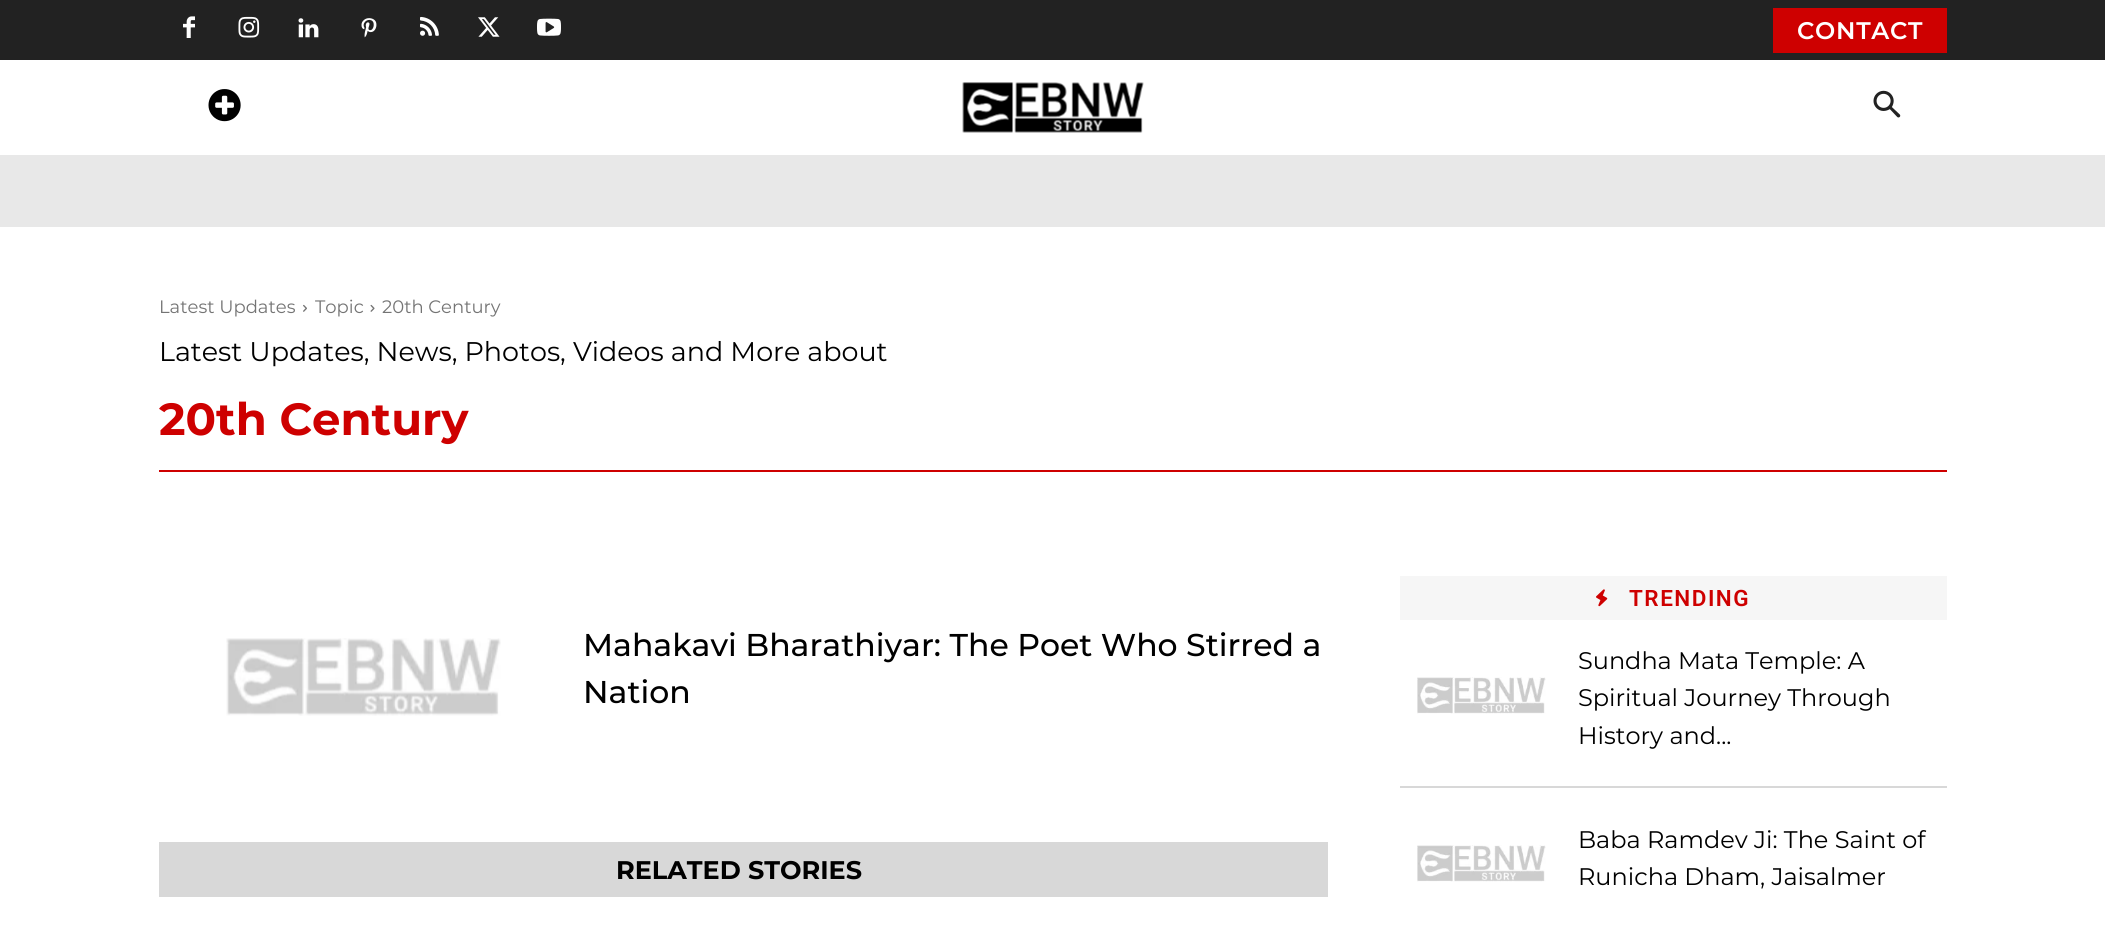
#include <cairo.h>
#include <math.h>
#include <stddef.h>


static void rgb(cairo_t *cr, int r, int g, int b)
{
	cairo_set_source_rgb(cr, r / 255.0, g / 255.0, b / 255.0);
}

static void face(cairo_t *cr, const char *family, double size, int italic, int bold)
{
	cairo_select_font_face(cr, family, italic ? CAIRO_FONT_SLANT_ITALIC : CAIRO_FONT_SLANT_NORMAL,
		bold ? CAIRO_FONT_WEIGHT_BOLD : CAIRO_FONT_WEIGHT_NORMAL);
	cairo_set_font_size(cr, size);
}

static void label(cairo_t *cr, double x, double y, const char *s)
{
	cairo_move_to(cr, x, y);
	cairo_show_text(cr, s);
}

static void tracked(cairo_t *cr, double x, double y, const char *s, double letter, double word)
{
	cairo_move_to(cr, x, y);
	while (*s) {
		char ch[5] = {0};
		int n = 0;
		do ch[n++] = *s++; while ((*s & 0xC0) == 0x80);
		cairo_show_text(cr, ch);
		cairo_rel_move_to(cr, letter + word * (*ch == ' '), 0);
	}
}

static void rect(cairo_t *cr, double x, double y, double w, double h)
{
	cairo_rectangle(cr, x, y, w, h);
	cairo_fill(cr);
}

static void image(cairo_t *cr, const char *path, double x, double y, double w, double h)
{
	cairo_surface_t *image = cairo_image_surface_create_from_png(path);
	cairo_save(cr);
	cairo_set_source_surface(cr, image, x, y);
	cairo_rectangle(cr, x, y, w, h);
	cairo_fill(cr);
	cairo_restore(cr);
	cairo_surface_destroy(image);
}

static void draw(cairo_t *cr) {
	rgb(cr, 255, 255, 255);
	cairo_paint(cr);
	rgb(cr, 34, 34, 34);
	rect(cr, 0, 0, 2105, 60);
	image(cr, "image0.png", 183, 16, 12, 22);
	image(cr, "image1.png", 238, 16, 22, 22);
	image(cr, "image2.png", 298, 18, 21, 20);
	image(cr, "image3.png", 361, 18, 16, 20);
	image(cr, "image4.png", 420, 16, 19, 20);
	image(cr, "image5.png", 478, 17, 22, 20);
	image(cr, "image6.png", 537, 18, 24, 18);
	rgb(cr, 206, 0, 0);
	rect(cr, 1773, 8, 174, 45);
	face(cr, "Montserrat SemiBold", 24, 0, 0);
	rgb(cr, 255, 255, 255);
	tracked(cr, 1797, 39, "CONTACT", 0.75, 0);
	image(cr, "image7.png", 208, 89, 33, 33);
	image(cr, "image8.png", 962, 82, 182, 51);
	image(cr, "image9.png", 1873, 90, 28, 28);
	rgb(cr, 232, 232, 232);
	rect(cr, 0, 155, 2105, 72);
	face(cr, "Montserrat", 18, 0, 0);
	rgb(cr, 116, 116, 116);
	label(cr, 159, 313, "Latest Updates");
	image(cr, "image10.png", 303, 304, 4, 8);
	label(cr, 315, 313, "Topic");
	image(cr, "image11.png", 370, 304, 5, 8);
	label(cr, 382, 313, "20th Century");
	face(cr, "Montserrat", 27, 0, 0);
	rgb(cr, 0, 0, 0);
	label(cr, 159, 361, "Latest Updates, News, Photos, Videos and More about");
	face(cr, "Montserrat", 45, 0, 1);
	rgb(cr, 206, 0, 0);
	label(cr, 159, 435, "20th Century");
	rect(cr, 159, 470, 1788, 2);
	image(cr, "image12.png", 226, 638, 275, 78);
	face(cr, "Montserrat Medium", 31.5, 0, 0);
	rgb(cr, 0, 0, 0);
	label(cr, 583, 656, "Mahakavi Bharathiyar: The Poet Who Stirred a");
	label(cr, 583, 703, "Nation");
	rgb(cr, 216, 216, 216);
	rect(cr, 159, 842, 1169, 55);
	face(cr, "Montserrat", 25.5, 0, 1);
	rgb(cr, 0, 0, 0);
	label(cr, 616, 879, "RELATED STORIES");
	rgb(cr, 246, 246, 246);
	rect(cr, 1400, 576, 547, 44);
	image(cr, "image13.png", 1596, 589, 12, 18);
	face(cr, "Roboto SemiBold", 22.5, 0, 0);
	rgb(cr, 206, 0, 0);
	tracked(cr, 1629, 606, "TRENDING", 1.5, 0);
	image(cr, "image14.png", 1417, 677, 129, 37);
	face(cr, "Montserrat", 24, 0, 0);
	rgb(cr, 0, 0, 0);
	label(cr, 1578, 669, "Sundha Mata Temple: A");
	label(cr, 1578, 706, "Spiritual Journey Through");
	label(cr, 1578, 744, "History and...");
	rgb(cr, 216, 216, 216);
	rect(cr, 1400, 786, 547, 2);
	image(cr, "image14.png", 1417, 845, 129, 37);
	rgb(cr, 0, 0, 0);
	label(cr, 1578, 848, "Baba Ramdev Ji: The Saint of");
	label(cr, 1578, 885, "Runicha Dham, Jaisalmer");
}

int main(void) {
	cairo_surface_t *surface = cairo_image_surface_create(CAIRO_FORMAT_RGB24, 2105, 932);
	cairo_t *cr = cairo_create(surface);
	cairo_font_options_t *options = cairo_font_options_create();
	cairo_font_options_set_hint_metrics(options, CAIRO_HINT_METRICS_OFF);
	cairo_font_options_set_hint_style(options, CAIRO_HINT_STYLE_NONE);
	cairo_set_font_options(cr, options);
	cairo_set_miter_limit(cr, 4);
	draw(cr);
	cairo_surface_write_to_png(surface, "render.png");
	cairo_font_options_destroy(options);
	cairo_destroy(cr);
	cairo_surface_destroy(surface);
	return 0;
}
